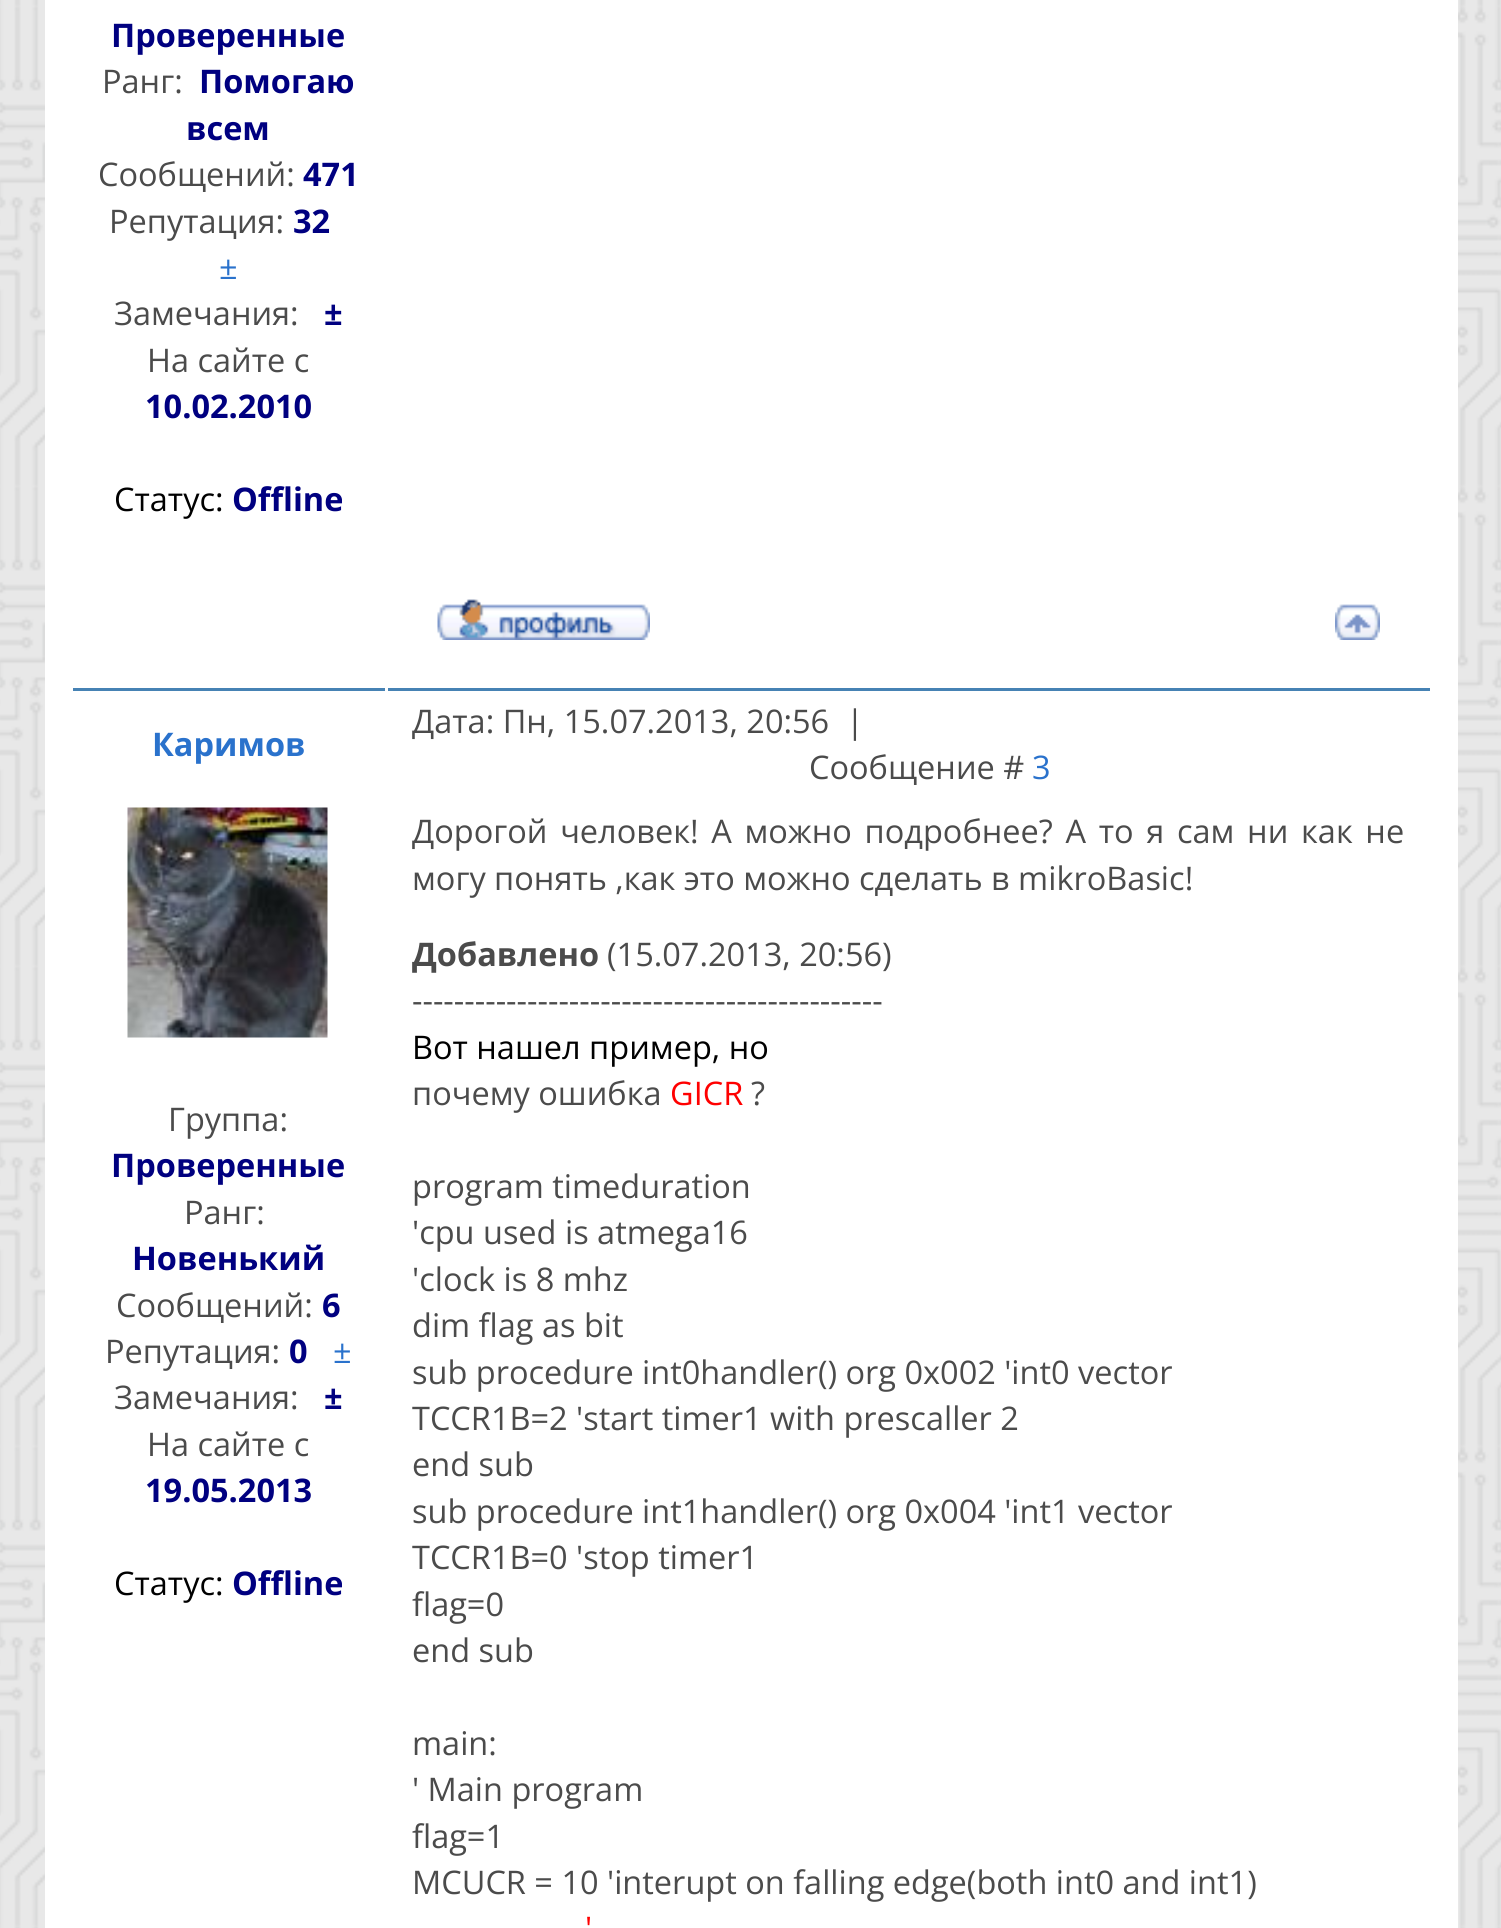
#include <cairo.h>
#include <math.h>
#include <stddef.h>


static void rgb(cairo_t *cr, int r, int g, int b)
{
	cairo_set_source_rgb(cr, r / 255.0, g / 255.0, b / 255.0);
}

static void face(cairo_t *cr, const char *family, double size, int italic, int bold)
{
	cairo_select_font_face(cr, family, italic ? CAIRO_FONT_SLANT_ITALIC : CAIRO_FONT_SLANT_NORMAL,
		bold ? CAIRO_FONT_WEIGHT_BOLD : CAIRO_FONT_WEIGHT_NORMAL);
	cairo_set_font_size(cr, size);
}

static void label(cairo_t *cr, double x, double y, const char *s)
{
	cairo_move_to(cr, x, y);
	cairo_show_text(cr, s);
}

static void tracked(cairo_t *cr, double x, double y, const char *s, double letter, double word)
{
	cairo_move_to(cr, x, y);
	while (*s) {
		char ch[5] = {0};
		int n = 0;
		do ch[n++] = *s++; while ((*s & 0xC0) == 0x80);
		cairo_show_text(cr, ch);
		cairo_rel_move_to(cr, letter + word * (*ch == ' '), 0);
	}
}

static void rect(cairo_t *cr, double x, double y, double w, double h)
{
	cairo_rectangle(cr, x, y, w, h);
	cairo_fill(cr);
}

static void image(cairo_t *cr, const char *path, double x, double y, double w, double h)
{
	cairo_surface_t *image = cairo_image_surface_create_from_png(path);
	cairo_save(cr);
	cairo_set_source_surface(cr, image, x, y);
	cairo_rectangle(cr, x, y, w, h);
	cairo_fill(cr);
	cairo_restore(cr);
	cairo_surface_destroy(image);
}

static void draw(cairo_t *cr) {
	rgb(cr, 255, 255, 255);
	cairo_paint(cr);
	image(cr, "image0.png", 0, 0, 1501, 1928);
	rgb(cr, 255, 255, 255);
	rect(cr, 45, 0, 1413, 1928);
	face(cr, "Open Sans", 32.5, 0, 1);
	rgb(cr, 0, 0, 128);
	label(cr, 111, 47, "Проверенные");
	face(cr, "Open Sans", 32.5, 0, 0);
	rgb(cr, 75, 75, 75);
	label(cr, 102, 93, "Ранг:");
	face(cr, "Open Sans", 32.5, 0, 1);
	rgb(cr, 0, 0, 128);
	label(cr, 199, 93, "Помогаю");
	label(cr, 186, 140, "всем");
	face(cr, "Open Sans", 32.5, 0, 0);
	rgb(cr, 75, 75, 75);
	label(cr, 98, 186, "Сообщений:");
	face(cr, "Open Sans", 32.5, 0, 1);
	rgb(cr, 0, 0, 128);
	label(cr, 303, 186, "471");
	face(cr, "Open Sans", 32.5, 0, 0);
	rgb(cr, 75, 75, 75);
	label(cr, 109, 233, "Репутация:");
	face(cr, "Open Sans", 32.5, 0, 1);
	rgb(cr, 0, 0, 128);
	label(cr, 293, 233, "32");
	face(cr, "Open Sans", 32.5, 0, 0);
	rgb(cr, 42, 114, 204);
	label(cr, 219, 279, "±");
	rgb(cr, 75, 75, 75);
	label(cr, 114, 325, "Замечания:");
	face(cr, "Open Sans", 32.5, 0, 1);
	rgb(cr, 0, 0, 128);
	label(cr, 324, 325, "±");
	face(cr, "Open Sans", 32.5, 0, 0);
	rgb(cr, 75, 75, 75);
	label(cr, 147, 372, "На сайте с");
	face(cr, "Open Sans", 32.5, 0, 1);
	rgb(cr, 0, 0, 128);
	label(cr, 145, 418, "10.02.2010");
	face(cr, "Open Sans", 32.5, 0, 0);
	rgb(cr, 0, 0, 0);
	label(cr, 114, 511, "Статус:");
	face(cr, "Open Sans", 32.5, 0, 1);
	rgb(cr, 0, 0, 128);
	label(cr, 232, 511, "Offline");
	image(cr, "image1.png", 437, 599, 213, 41);
	image(cr, "image2.png", 1335, 604, 45, 36);
	rgb(cr, 70, 130, 180);
	rect(cr, 73, 688, 312, 3);
	rgb(cr, 42, 114, 204);
	label(cr, 152, 756, "Каримов");
	rgb(cr, 70, 130, 180);
	rect(cr, 388, 688, 1042, 3);
	face(cr, "Open Sans", 32.5, 0, 0);
	rgb(cr, 75, 75, 75);
	label(cr, 412, 733, "Дата: Пн, 15.07.2013, 20:56  |");
	label(cr, 809, 779, "Сообщение #");
	rgb(cr, 42, 114, 204);
	label(cr, 1032, 779, "3");
	image(cr, "image3.png", 127, 807, 201, 231);
	rgb(cr, 75, 75, 75);
	label(cr, 168, 1131, "Группа:");
	face(cr, "Open Sans", 32.5, 0, 1);
	rgb(cr, 0, 0, 128);
	label(cr, 111, 1177, "Проверенные");
	face(cr, "Open Sans", 32.5, 0, 0);
	rgb(cr, 75, 75, 75);
	label(cr, 184, 1224, "Ранг:");
	face(cr, "Open Sans", 32.5, 0, 1);
	rgb(cr, 0, 0, 128);
	label(cr, 132, 1270, "Новенький");
	face(cr, "Open Sans", 32.5, 0, 0);
	rgb(cr, 75, 75, 75);
	label(cr, 116, 1317, "Сообщений:");
	face(cr, "Open Sans", 32.5, 0, 1);
	rgb(cr, 0, 0, 128);
	label(cr, 322, 1317, "6");
	face(cr, "Open Sans", 32.5, 0, 0);
	rgb(cr, 75, 75, 75);
	label(cr, 105, 1363, "Репутация:");
	face(cr, "Open Sans", 32.5, 0, 1);
	rgb(cr, 0, 0, 128);
	label(cr, 289, 1363, "0");
	face(cr, "Open Sans", 32.5, 0, 0);
	rgb(cr, 42, 114, 204);
	label(cr, 333, 1363, "±");
	rgb(cr, 75, 75, 75);
	label(cr, 114, 1409, "Замечания:");
	face(cr, "Open Sans", 32.5, 0, 1);
	rgb(cr, 0, 0, 128);
	label(cr, 324, 1409, "±");
	face(cr, "Open Sans", 32.5, 0, 0);
	rgb(cr, 75, 75, 75);
	label(cr, 147, 1456, "На сайте с");
	face(cr, "Open Sans", 32.5, 0, 1);
	rgb(cr, 0, 0, 128);
	label(cr, 145, 1502, "19.05.2013");
	face(cr, "Open Sans", 32.5, 0, 0);
	rgb(cr, 0, 0, 0);
	label(cr, 114, 1595, "Статус:");
	face(cr, "Open Sans", 32.5, 0, 1);
	rgb(cr, 0, 0, 128);
	label(cr, 232, 1595, "Offline");
	face(cr, "Open Sans", 32.5, 0, 0);
	rgb(cr, 75, 75, 75);
	tracked(cr, 412, 843, "Дорогой человек! А можно подробнее? А то я сам ни как не", 0, 4.25);
	label(cr, 412, 890, "могу понять ,как это можно сделать в mikroBasic!");
	face(cr, "Open Sans", 32.5, 0, 1);
	label(cr, 412, 966, "Добавлено");
	face(cr, "Open Sans", 32.5, 0, 0);
	label(cr, 607, 966, "(15.07.2013, 20:56)");
	label(cr, 412, 1012, "---------------------------------------------");
	rgb(cr, 0, 0, 0);
	label(cr, 412, 1059, "Вот нашел пример, но");
	rgb(cr, 75, 75, 75);
	label(cr, 412, 1105, "почему ошибка");
	rgb(cr, 255, 0, 0);
	label(cr, 670, 1105, "GICR");
	rgb(cr, 75, 75, 75);
	label(cr, 751, 1105, "?");
	label(cr, 412, 1198, "program timeduration");
	label(cr, 412, 1244, "'cpu used is atmega16");
	label(cr, 412, 1291, "'clock is 8 mhz");
	label(cr, 412, 1337, "dim flag as bit");
	label(cr, 412, 1384, "sub procedure int0handler() org 0x002 'int0 vector");
	label(cr, 412, 1430, "TCCR1B=2 'start timer1 with prescaller 2");
	label(cr, 412, 1476, "end sub");
	label(cr, 412, 1523, "sub procedure int1handler() org 0x004 'int1 vector");
	label(cr, 412, 1569, "TCCR1B=0 'stop timer1");
	label(cr, 412, 1616, "flag=0");
	label(cr, 412, 1662, "end sub");
	label(cr, 412, 1755, "main:");
	label(cr, 412, 1801, "' Main program");
	label(cr, 412, 1848, "flag=1");
	label(cr, 412, 1894, "MCUCR = 10 'interupt on falling edge(both int0 and int1)");
	rgb(cr, 255, 0, 0);
	label(cr, 585, 1940, "'");
}

int main(void) {
	cairo_surface_t *surface = cairo_image_surface_create(CAIRO_FORMAT_RGB24, 1501, 1928);
	cairo_t *cr = cairo_create(surface);
	cairo_font_options_t *options = cairo_font_options_create();
	cairo_font_options_set_hint_metrics(options, CAIRO_HINT_METRICS_OFF);
	cairo_font_options_set_hint_style(options, CAIRO_HINT_STYLE_NONE);
	cairo_set_font_options(cr, options);
	cairo_set_miter_limit(cr, 4);
	draw(cr);
	cairo_surface_write_to_png(surface, "render.png");
	cairo_font_options_destroy(options);
	cairo_destroy(cr);
	cairo_surface_destroy(surface);
	return 0;
}
